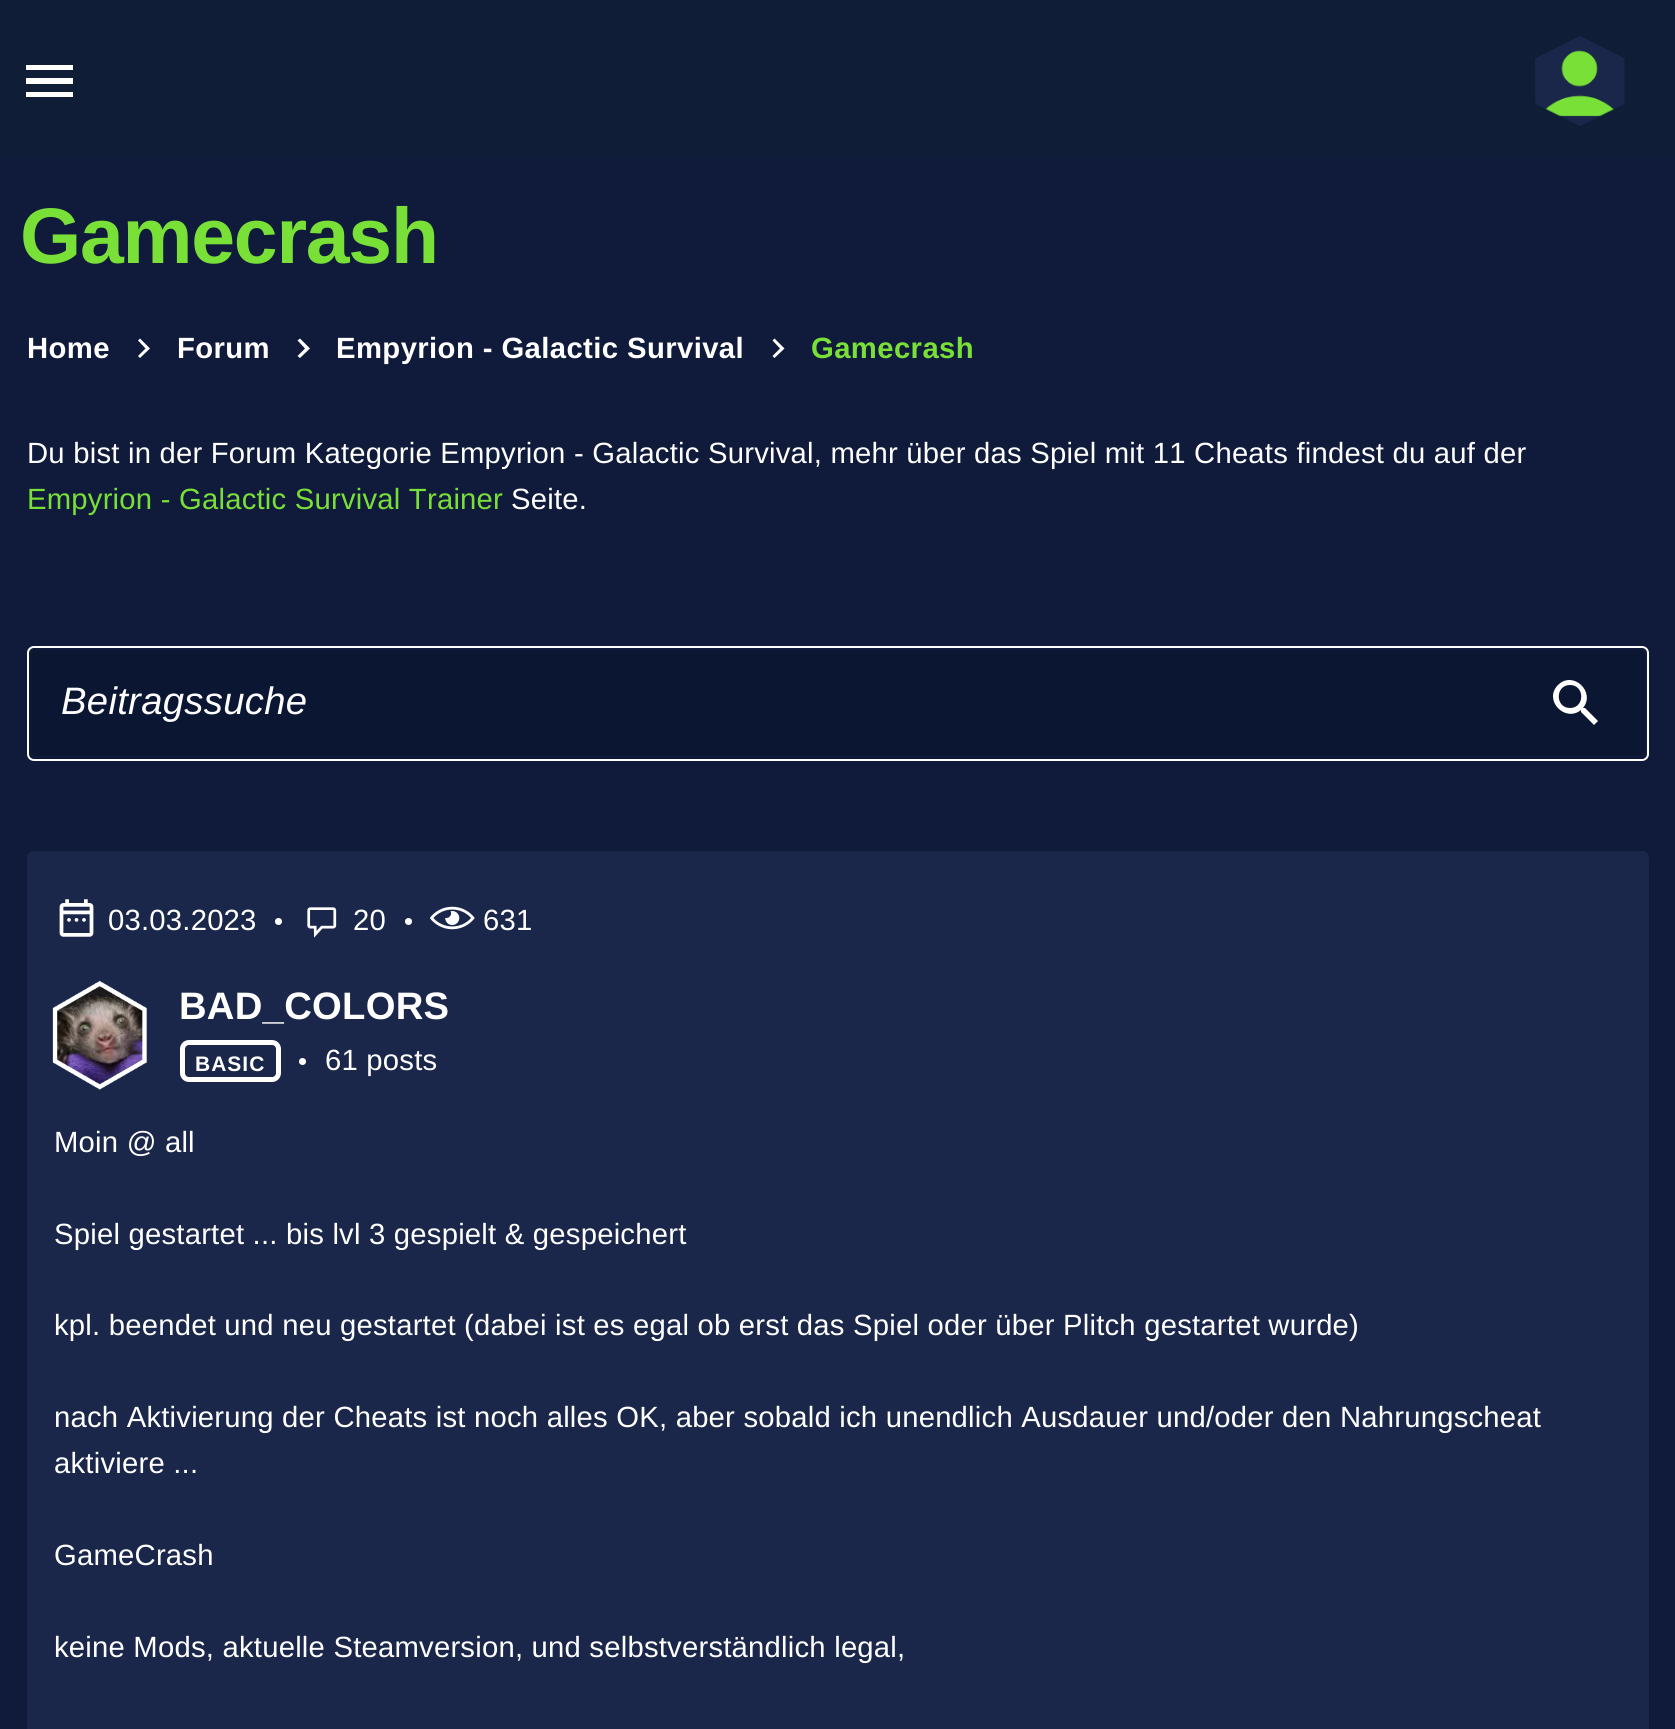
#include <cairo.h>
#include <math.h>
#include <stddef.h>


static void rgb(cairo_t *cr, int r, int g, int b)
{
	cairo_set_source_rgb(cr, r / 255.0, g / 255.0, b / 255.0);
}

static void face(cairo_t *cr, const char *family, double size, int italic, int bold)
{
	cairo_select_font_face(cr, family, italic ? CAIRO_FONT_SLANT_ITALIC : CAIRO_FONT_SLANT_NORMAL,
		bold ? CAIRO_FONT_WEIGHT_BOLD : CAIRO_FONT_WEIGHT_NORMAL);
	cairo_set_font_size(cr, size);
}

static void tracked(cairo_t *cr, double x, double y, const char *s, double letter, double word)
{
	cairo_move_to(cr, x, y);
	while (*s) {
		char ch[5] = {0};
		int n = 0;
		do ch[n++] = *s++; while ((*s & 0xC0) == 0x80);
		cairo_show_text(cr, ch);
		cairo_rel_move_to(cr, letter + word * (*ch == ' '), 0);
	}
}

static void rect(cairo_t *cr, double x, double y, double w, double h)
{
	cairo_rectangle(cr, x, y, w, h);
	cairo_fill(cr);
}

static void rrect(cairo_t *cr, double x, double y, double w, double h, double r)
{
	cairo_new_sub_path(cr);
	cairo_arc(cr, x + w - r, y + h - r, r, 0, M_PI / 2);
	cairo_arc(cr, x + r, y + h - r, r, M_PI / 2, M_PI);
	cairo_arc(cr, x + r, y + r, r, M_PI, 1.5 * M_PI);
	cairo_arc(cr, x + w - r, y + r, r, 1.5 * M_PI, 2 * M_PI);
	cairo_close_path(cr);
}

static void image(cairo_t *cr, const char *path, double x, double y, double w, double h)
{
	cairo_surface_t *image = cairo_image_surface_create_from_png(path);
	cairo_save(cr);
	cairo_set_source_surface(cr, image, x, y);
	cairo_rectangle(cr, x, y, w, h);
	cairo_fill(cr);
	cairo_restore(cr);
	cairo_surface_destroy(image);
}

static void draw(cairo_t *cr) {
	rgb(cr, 16, 27, 59);
	cairo_paint(cr);
	rgb(cr, 16, 29, 55);
	rect(cr, 0, 0, 1675, 158);
	rgb(cr, 255, 255, 255);
	cairo_new_path(cr);
	cairo_move_to(cr, 26, 97);
	cairo_line_to(cr, 73, 97);
	cairo_line_to(cr, 73, 92);
	cairo_line_to(cr, 26, 92);
	cairo_close_path(cr);
	cairo_move_to(cr, 26, 84);
	cairo_line_to(cr, 73, 84);
	cairo_line_to(cr, 73, 78);
	cairo_line_to(cr, 26, 78);
	cairo_close_path(cr);
	cairo_move_to(cr, 26, 65);
	cairo_line_to(cr, 26, 70);
	cairo_line_to(cr, 73, 70);
	cairo_line_to(cr, 73, 65);
	cairo_close_path(cr);
	cairo_fill(cr);
	image(cr, "image0.png", 1535, 36, 90, 90);
	face(cr, "Liberation Sans", 78.75, 0, 1);
	rgb(cr, 120, 224, 55);
	tracked(cr, 20, 263, "Gamecrash", -1.25, 0);
	face(cr, "Liberation Sans", 29.27, 0, 1);
	rgb(cr, 255, 255, 255);
	tracked(cr, 27, 358, "Home", 0.4, 0);
	cairo_new_path(cr);
	cairo_move_to(cr, 138, 356);
	cairo_line_to(cr, 145.5, 348.5);
	cairo_line_to(cr, 138, 340.5);
	cairo_line_to(cr, 140, 338.5);
	cairo_line_to(cr, 150, 348.5);
	cairo_line_to(cr, 140, 358);
	cairo_close_path(cr);
	cairo_fill(cr);
	tracked(cr, 177, 358, "Forum", 0.4, 0);
	cairo_new_path(cr);
	cairo_move_to(cr, 297.5, 356);
	cairo_line_to(cr, 305, 348.5);
	cairo_line_to(cr, 297.5, 340.5);
	cairo_line_to(cr, 300, 338.5);
	cairo_line_to(cr, 310, 348.5);
	cairo_line_to(cr, 300, 358);
	cairo_close_path(cr);
	cairo_fill(cr);
	tracked(cr, 336, 358, "Empyrion - Galactic Survival", 0.4, 0);
	cairo_new_path(cr);
	cairo_move_to(cr, 772.5, 356);
	cairo_line_to(cr, 780, 348.5);
	cairo_line_to(cr, 772.5, 340.5);
	cairo_line_to(cr, 774.5, 338.5);
	cairo_line_to(cr, 784.5, 348.5);
	cairo_line_to(cr, 774.5, 358);
	cairo_close_path(cr);
	cairo_fill(cr);
	rgb(cr, 120, 224, 55);
	tracked(cr, 811, 358, "Gamecrash", 0.4, 0);
	face(cr, "Liberation Sans", 29.27, 0, 0);
	rgb(cr, 255, 255, 255);
	tracked(cr, 27, 463, "Du bist in der Forum Kategorie Empyrion - Galactic Survival, mehr über das Spiel mit 11 Cheats findest du auf der", 0.21, 0);
	rgb(cr, 120, 224, 55);
	tracked(cr, 27, 509, "Empyrion - Galactic Survival Trainer", 0.21, 0);
	rgb(cr, 255, 255, 255);
	tracked(cr, 511, 509, "Seite.", 0.21, 0);
	rgb(cr, 11, 22, 50);
	rrect(cr, 28, 647, 1620, 113, 6);
	cairo_fill_preserve(cr);
	rgb(cr, 255, 255, 255);
	cairo_stroke(cr);
	rgb(cr, 11, 22, 50);
	rrect(cr, 29, 648, 1499, 110, 7);
	cairo_fill(cr);
	rgb(cr, 255, 255, 255);
	cairo_new_path(cr);
	cairo_move_to(cr, 1585, 708);
	cairo_line_to(cr, 1583, 708);
	cairo_curve_to(cr, 1596, 692, 1573, 670, 1558, 685);
	cairo_curve_to(cr, 1543, 700, 1565, 723, 1581, 710);
	cairo_line_to(cr, 1581, 712);
	cairo_line_to(cr, 1594, 725);
	cairo_line_to(cr, 1598, 721);
	cairo_close_path(cr);
	cairo_move_to(cr, 1570, 708);
	cairo_curve_to(cr, 1555, 708, 1555, 685, 1570, 685);
	cairo_curve_to(cr, 1585, 685, 1585, 708, 1570, 708);
	cairo_close_path(cr);
	cairo_fill(cr);
	rrect(cr, 30, 649, 1616, 108, 6);
	rgb(cr, 16, 27, 59);
	cairo_stroke(cr);
	face(cr, "Liberation Sans", 38.25, 1, 0);
	rgb(cr, 255, 255, 255);
	tracked(cr, 61, 714, "Beitragssuche", 0.3, 0);
	rgb(cr, 26, 39, 74);
	rrect(cr, 27, 851, 1622, 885, 7);
	cairo_fill(cr);
	image(cr, "image1.png", 59, 899, 35, 38);
	face(cr, "Liberation Sans", 29.27, 0, 0);
	rgb(cr, 255, 255, 255);
	tracked(cr, 108, 930, "03.03.2023", 0.21, 0);
	cairo_new_path(cr);
	cairo_arc(cr, 278.5, 921.5, 3.5, 0, 2 * M_PI);
	cairo_fill(cr);
	image(cr, "image2.png", 307, 907, 30, 31);
	tracked(cr, 353, 930, "20", 0.21, 0);
	cairo_new_path(cr);
	cairo_arc(cr, 408.5, 921.5, 3.5, 0, 2 * M_PI);
	cairo_fill(cr);
	image(cr, "image3.png", 430, 906, 45, 24);
	tracked(cr, 483, 930, "631", 0.21, 0);
	image(cr, "image5.png", 57, 986, 86, 98);
	image(cr, "image4.png", 52, 980, 96, 110);
	face(cr, "Liberation Sans", 38.25, 0, 1);
	tracked(cr, 179, 1019, "BAD_COLORS", 0.25, 0);
	rrect(cr, 182.5, 1042.5, 96, 37, 6.5);
	cairo_set_line_width(cr, 5);
	cairo_stroke(cr);
	face(cr, "Liberation Sans", 21, 0, 1);
	tracked(cr, 195, 1071, "BASIC", 1, 0);
	cairo_new_path(cr);
	cairo_arc(cr, 302.5, 1061.5, 3.5, 0, 2 * M_PI);
	cairo_fill(cr);
	face(cr, "Liberation Sans", 29.27, 0, 0);
	tracked(cr, 325, 1070, "61 posts", 0.21, 0);
	tracked(cr, 54, 1152, "Moin @ all", 0.21, 0);
	tracked(cr, 54, 1244, "Spiel gestartet ... bis lvl 3 gespielt & gespeichert", 0.21, 0);
	tracked(cr, 54, 1335, "kpl. beendet und neu gestartet (dabei ist es egal ob erst das Spiel oder über Plitch gestartet wurde)", 0.21, 0);
	tracked(cr, 54, 1427, "nach Aktivierung der Cheats ist noch alles OK, aber sobald ich unendlich Ausdauer und/oder den Nahrungscheat", 0.21, 0);
	tracked(cr, 54, 1473, "aktiviere ...", 0.21, 0);
	tracked(cr, 54, 1565, "GameCrash", 0.21, 0);
	tracked(cr, 54, 1657, "keine Mods, aktuelle Steamversion, und selbstverständlich legal,", 0.21, 0);
}

int main(void) {
	cairo_surface_t *surface = cairo_image_surface_create(CAIRO_FORMAT_RGB24, 1675, 1729);
	cairo_t *cr = cairo_create(surface);
	cairo_font_options_t *options = cairo_font_options_create();
	cairo_font_options_set_hint_metrics(options, CAIRO_HINT_METRICS_OFF);
	cairo_font_options_set_hint_style(options, CAIRO_HINT_STYLE_NONE);
	cairo_set_font_options(cr, options);
	cairo_set_miter_limit(cr, 4);
	draw(cr);
	cairo_surface_write_to_png(surface, "render.png");
	cairo_font_options_destroy(options);
	cairo_destroy(cr);
	cairo_surface_destroy(surface);
	return 0;
}
